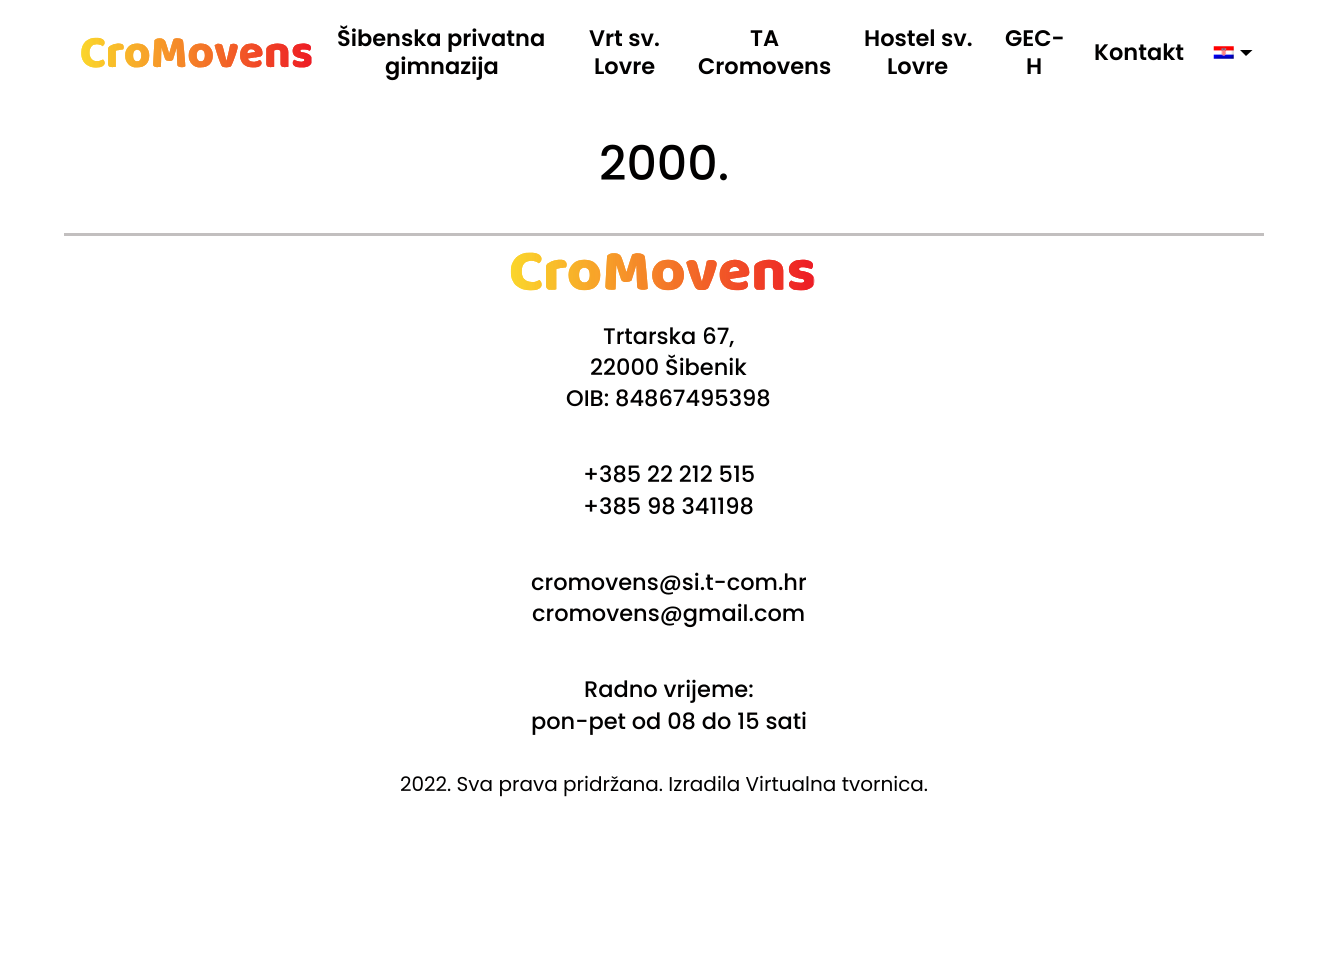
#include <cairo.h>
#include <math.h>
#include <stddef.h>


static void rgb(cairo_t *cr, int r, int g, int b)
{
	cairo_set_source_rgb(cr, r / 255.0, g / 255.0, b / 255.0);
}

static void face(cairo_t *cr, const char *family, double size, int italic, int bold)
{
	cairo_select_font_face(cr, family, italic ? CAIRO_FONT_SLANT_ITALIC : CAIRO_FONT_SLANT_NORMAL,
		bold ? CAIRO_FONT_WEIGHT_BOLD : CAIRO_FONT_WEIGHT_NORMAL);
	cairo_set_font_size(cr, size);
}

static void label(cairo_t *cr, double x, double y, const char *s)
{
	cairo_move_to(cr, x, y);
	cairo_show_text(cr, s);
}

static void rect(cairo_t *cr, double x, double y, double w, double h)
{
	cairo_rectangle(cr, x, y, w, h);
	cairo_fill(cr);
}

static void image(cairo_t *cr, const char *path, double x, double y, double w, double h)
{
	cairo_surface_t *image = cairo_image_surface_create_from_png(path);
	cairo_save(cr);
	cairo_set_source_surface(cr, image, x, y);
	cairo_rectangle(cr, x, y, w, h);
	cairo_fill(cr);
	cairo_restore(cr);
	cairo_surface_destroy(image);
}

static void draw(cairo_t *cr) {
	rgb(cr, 255, 255, 255);
	cairo_paint(cr);
	image(cr, "image0.png", 81, 37, 231, 31);
	face(cr, "Poppins SemiBold", 22.5, 0, 0);
	rgb(cr, 1, 0, 0);
	label(cr, 337, 46, "Šibenska privatna");
	label(cr, 385, 74, "gimnazija");
	label(cr, 589, 46, "Vrt sv.");
	label(cr, 594, 74, "Lovre");
	label(cr, 750, 46, "TA");
	label(cr, 698, 74, "Cromovens");
	label(cr, 864, 46, "Hostel sv.");
	label(cr, 887, 74, "Lovre");
	label(cr, 1005, 46, "GEC-");
	label(cr, 1026, 74, "H");
	label(cr, 1094, 60, "Kontakt");
	image(cr, "image1.png", 1213, 46, 21, 13);
	rgb(cr, 0, 0, 0);
	cairo_new_path(cr);
	cairo_move_to(cr, 1240, 50);
	cairo_line_to(cr, 1252.5, 50);
	cairo_line_to(cr, 1246, 56);
	cairo_close_path(cr);
	cairo_fill(cr);
	face(cr, "Poppins Medium", 47.5, 0, 0);
	rgb(cr, 1, 0, 0);
	label(cr, 599, 180, "2000.");
	rgb(cr, 194, 191, 191);
	rect(cr, 64, 233, 1200, 3);
	image(cr, "image2.png", 510, 252, 305, 39);
	face(cr, "Poppins Medium", 22.5, 0, 0);
	rgb(cr, 1, 0, 0);
	label(cr, 603, 344, "Trtarska 67,");
	label(cr, 590, 375, "22000 Šibenik");
	label(cr, 566, 406, "OIB: 84867495398");
	label(cr, 583, 482, "+385 22 212 515");
	label(cr, 583, 514, "+385 98 341198");
	label(cr, 531, 590, "cromovens@si.t-com.hr");
	label(cr, 532, 621, "cromovens@gmail.com");
	label(cr, 584, 697, "Radno vrijeme:");
	label(cr, 531, 729, "pon-pet od 08 do 15 sati");
	face(cr, "Poppins", 20, 0, 0);
	label(cr, 400, 791, "2022. Sva prava pridržana. Izradila Virtualna tvornica.");
}

int main(void) {
	cairo_surface_t *surface = cairo_image_surface_create(CAIRO_FORMAT_RGB24, 1327, 955);
	cairo_t *cr = cairo_create(surface);
	cairo_font_options_t *options = cairo_font_options_create();
	cairo_font_options_set_hint_metrics(options, CAIRO_HINT_METRICS_OFF);
	cairo_font_options_set_hint_style(options, CAIRO_HINT_STYLE_NONE);
	cairo_set_font_options(cr, options);
	cairo_set_miter_limit(cr, 4);
	draw(cr);
	cairo_surface_write_to_png(surface, "render.png");
	cairo_font_options_destroy(options);
	cairo_destroy(cr);
	cairo_surface_destroy(surface);
	return 0;
}
